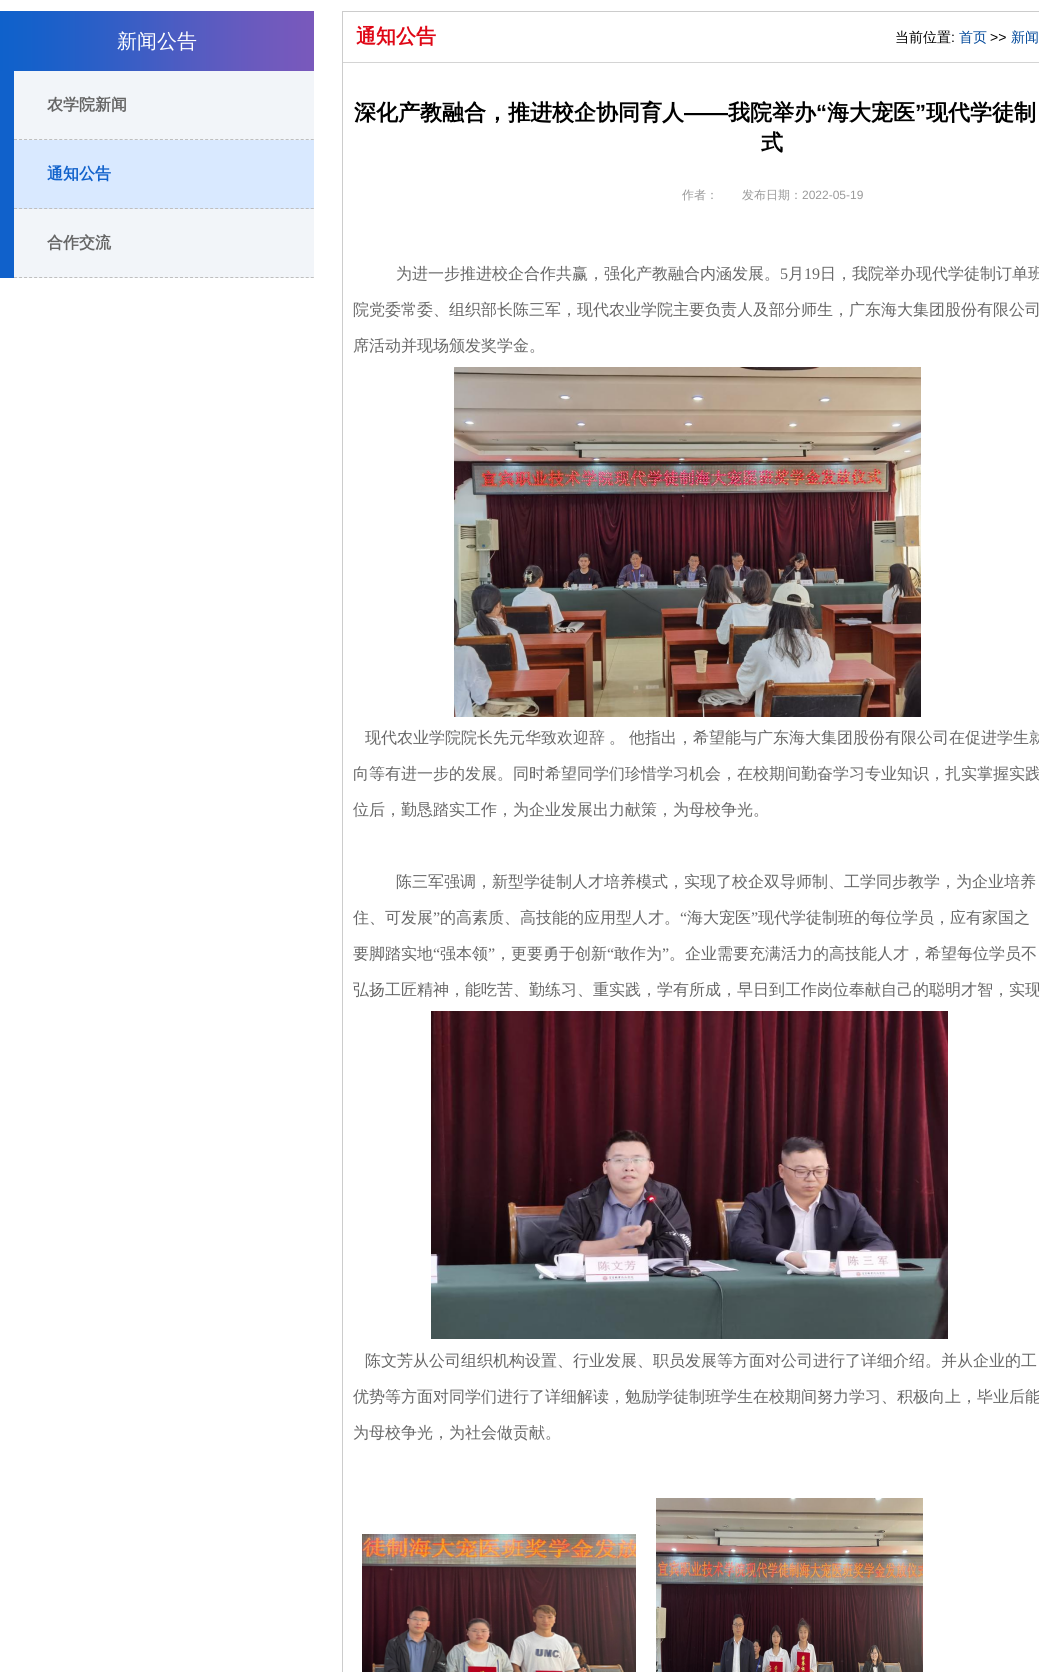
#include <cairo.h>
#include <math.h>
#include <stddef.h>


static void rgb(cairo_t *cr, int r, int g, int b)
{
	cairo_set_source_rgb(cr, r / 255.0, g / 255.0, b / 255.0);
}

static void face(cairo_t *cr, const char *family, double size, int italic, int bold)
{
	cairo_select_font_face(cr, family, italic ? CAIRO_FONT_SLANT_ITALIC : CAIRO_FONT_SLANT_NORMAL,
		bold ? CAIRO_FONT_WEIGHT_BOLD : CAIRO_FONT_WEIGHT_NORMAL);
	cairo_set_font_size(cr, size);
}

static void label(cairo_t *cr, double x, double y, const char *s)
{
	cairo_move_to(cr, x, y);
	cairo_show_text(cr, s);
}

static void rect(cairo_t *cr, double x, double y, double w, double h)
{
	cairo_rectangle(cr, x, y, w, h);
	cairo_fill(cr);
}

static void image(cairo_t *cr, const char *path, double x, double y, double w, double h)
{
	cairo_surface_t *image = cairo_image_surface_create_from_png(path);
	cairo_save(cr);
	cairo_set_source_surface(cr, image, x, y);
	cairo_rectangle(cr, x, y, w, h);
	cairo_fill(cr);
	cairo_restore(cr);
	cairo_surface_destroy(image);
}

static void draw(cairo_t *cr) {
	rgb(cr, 255, 255, 255);
	cairo_paint(cr);
	rgb(cr, 242, 245, 249);
	rect(cr, 14, 71, 300, 207);
	image(cr, "image0.png", 0, 11, 314, 60);
	face(cr, "WenQuanYi Zen Hei Medium", 20, 0, 0);
	rgb(cr, 255, 255, 255);
	label(cr, 117, 48, "新闻公告");
	rgb(cr, 16, 97, 203);
	rect(cr, 0, 71, 14, 207);
	cairo_new_path(cr);
	cairo_move_to(cr, 14, 139.5);
	cairo_line_to(cr, 314, 139.5);
	rgb(cr, 191, 191, 191);
	cairo_set_line_width(cr, 1);
	cairo_set_dash(cr, (double[]){3, 2.03}, 2, 0);
	cairo_stroke(cr);
	face(cr, "WenQuanYi Zen Hei", 16, 0, 1);
	rgb(cr, 102, 102, 102);
	label(cr, 47, 110, "农学院新闻");
	rgb(cr, 217, 233, 255);
	rect(cr, 14, 140, 300, 69);
	cairo_new_path(cr);
	cairo_move_to(cr, 14, 208.5);
	cairo_line_to(cr, 314, 208.5);
	rgb(cr, 191, 191, 191);
	cairo_stroke(cr);
	rgb(cr, 16, 97, 203);
	label(cr, 47, 179, "通知公告");
	cairo_new_path(cr);
	cairo_move_to(cr, 14, 277.5);
	cairo_line_to(cr, 314, 277.5);
	rgb(cr, 191, 191, 191);
	cairo_stroke(cr);
	rgb(cr, 102, 102, 102);
	label(cr, 47, 248, "合作交流");
	cairo_rectangle(cr, 342.5, 11.5, 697, 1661);
	rgb(cr, 204, 204, 204);
	cairo_set_dash(cr, NULL, 0, 0);
	cairo_stroke(cr);
	face(cr, "WenQuanYi Zen Hei", 20, 0, 1);
	rgb(cr, 223, 7, 22);
	label(cr, 356, 43, "通知公告");
	face(cr, "WenQuanYi Zen Hei Medium", 14, 0, 0);
	rgb(cr, 0, 0, 0);
	label(cr, 895, 42, "当前位置");
	face(cr, "Liberation Sans", 14, 0, 0);
	label(cr, 951, 42, ":");
	face(cr, "WenQuanYi Zen Hei Medium", 14, 0, 0);
	rgb(cr, 0, 71, 153);
	label(cr, 959, 42, "首页");
	face(cr, "Liberation Sans", 14, 0, 0);
	rgb(cr, 0, 0, 0);
	label(cr, 990, 42, ">>");
	face(cr, "WenQuanYi Zen Hei Medium", 14, 0, 0);
	rgb(cr, 0, 71, 153);
	label(cr, 1011, 42, "新闻");
	rgb(cr, 212, 212, 212);
	rect(cr, 343, 62, 696, 1);
	face(cr, "WenQuanYi Zen Hei", 22, 0, 1);
	rgb(cr, 0, 0, 0);
	label(cr, 354, 120, "深化产教融合，推进校企协同育人");
	face(cr, "Liberation Sans", 22, 0, 1);
	label(cr, 684, 120, "——");
	face(cr, "WenQuanYi Zen Hei", 22, 0, 1);
	label(cr, 728, 120, "我院举办");
	face(cr, "Liberation Sans", 22, 0, 1);
	label(cr, 816, 120, "“");
	face(cr, "WenQuanYi Zen Hei", 22, 0, 1);
	label(cr, 827, 120, "海大宠医");
	face(cr, "Liberation Sans", 22, 0, 1);
	label(cr, 915, 120, "”");
	face(cr, "WenQuanYi Zen Hei", 22, 0, 1);
	label(cr, 926, 120, "现代学徒制");
	label(cr, 761, 150, "式");
	face(cr, "WenQuanYi Zen Hei Medium", 12, 0, 0);
	rgb(cr, 153, 153, 153);
	label(cr, 682, 199, "作者：");
	label(cr, 742, 199, "发布日期：");
	face(cr, "Liberation Sans", 12, 0, 0);
	label(cr, 802, 199, "2022-05-19");
	face(cr, "WenQuanYi Zen Hei Medium", 16, 0, 0);
	rgb(cr, 102, 102, 102);
	label(cr, 396, 279, "为进一步推进校企合作共赢，强化产教融合内涵发展。");
	face(cr, "Liberation Serif", 16, 0, 0);
	label(cr, 780, 279, "5");
	face(cr, "WenQuanYi Zen Hei Medium", 16, 0, 0);
	label(cr, 788, 279, "月");
	face(cr, "Liberation Serif", 16, 0, 0);
	label(cr, 804, 279, "19");
	face(cr, "WenQuanYi Zen Hei Medium", 16, 0, 0);
	label(cr, 820, 279, "日，我院举办现代学徒制订单班");
	label(cr, 353, 315, "院党委常委、组织部长陈三军，现代农业学院主要负责人及部分师生，广东海大集团股份有限公司");
	label(cr, 353, 351, "席活动并现场颁发奖学金。");
	image(cr, "image1.png", 454, 367, 467, 350);
	label(cr, 365, 743, "现代农业学院院长先元华致欢迎辞");
	label(cr, 609, 743, "。");
	label(cr, 629, 743, "他指出，希望能与广东海大集团股份有限公司在促进学生就");
	label(cr, 353, 779, "向等有进一步的发展。同时希望同学们珍惜学习机会，在校期间勤奋学习专业知识，扎实掌握实践");
	label(cr, 353, 815, "位后，勤恳踏实工作，为企业发展出力献策，为母校争光。");
	label(cr, 396, 887, "陈三军强调，新型学徒制人才培养模式，实现了校企双导师制、工学同步教学，为企业培养");
	label(cr, 353, 923, "住、可发展");
	face(cr, "Liberation Serif", 16, 0, 0);
	label(cr, 433, 923, "”");
	face(cr, "WenQuanYi Zen Hei Medium", 16, 0, 0);
	label(cr, 440, 923, "的高素质、高技能的应用型人才。");
	face(cr, "Liberation Serif", 16, 0, 0);
	label(cr, 680, 923, "“");
	face(cr, "WenQuanYi Zen Hei Medium", 16, 0, 0);
	label(cr, 687, 923, "海大宠医");
	face(cr, "Liberation Serif", 16, 0, 0);
	label(cr, 751, 923, "”");
	face(cr, "WenQuanYi Zen Hei Medium", 16, 0, 0);
	label(cr, 758, 923, "现代学徒制班的每位学员，应有家国之");
	label(cr, 353, 959, "要脚踏实地");
	face(cr, "Liberation Serif", 16, 0, 0);
	label(cr, 433, 959, "“");
	face(cr, "WenQuanYi Zen Hei Medium", 16, 0, 0);
	label(cr, 440, 959, "强本领");
	face(cr, "Liberation Serif", 16, 0, 0);
	label(cr, 488, 959, "”");
	face(cr, "WenQuanYi Zen Hei Medium", 16, 0, 0);
	label(cr, 495, 959, "，更要勇于创新");
	face(cr, "Liberation Serif", 16, 0, 0);
	label(cr, 607, 959, "“");
	face(cr, "WenQuanYi Zen Hei Medium", 16, 0, 0);
	label(cr, 614, 959, "敢作为");
	face(cr, "Liberation Serif", 16, 0, 0);
	label(cr, 662, 959, "”");
	face(cr, "WenQuanYi Zen Hei Medium", 16, 0, 0);
	label(cr, 669, 959, "。企业需要充满活力的高技能人才，希望每位学员不");
	label(cr, 353, 995, "弘扬工匠精神，能吃苦、勤练习、重实践，学有所成，早日到工作岗位奉献自己的聪明才智，实现");
	image(cr, "image2.png", 431, 1011, 517, 328);
	label(cr, 365, 1366, "陈文芳从公司组织机构设置、行业发展、职员发展等方面对公司进行了详细介绍。并从企业的工");
	label(cr, 353, 1402, "优势等方面对同学们进行了详细解读，勉励学徒制班学生在校期间努力学习、积极向上，毕业后能");
	label(cr, 353, 1438, "为母校争光，为社会做贡献。");
	image(cr, "image3.png", 362, 1534, 274, 138);
	image(cr, "image4.png", 656, 1498, 267, 174);
}

int main(void) {
	cairo_surface_t *surface = cairo_image_surface_create(CAIRO_FORMAT_RGB24, 1039, 1672);
	cairo_t *cr = cairo_create(surface);
	cairo_font_options_t *options = cairo_font_options_create();
	cairo_font_options_set_hint_metrics(options, CAIRO_HINT_METRICS_OFF);
	cairo_font_options_set_hint_style(options, CAIRO_HINT_STYLE_NONE);
	cairo_set_font_options(cr, options);
	cairo_set_miter_limit(cr, 4);
	draw(cr);
	cairo_surface_write_to_png(surface, "render.png");
	cairo_font_options_destroy(options);
	cairo_destroy(cr);
	cairo_surface_destroy(surface);
	return 0;
}
